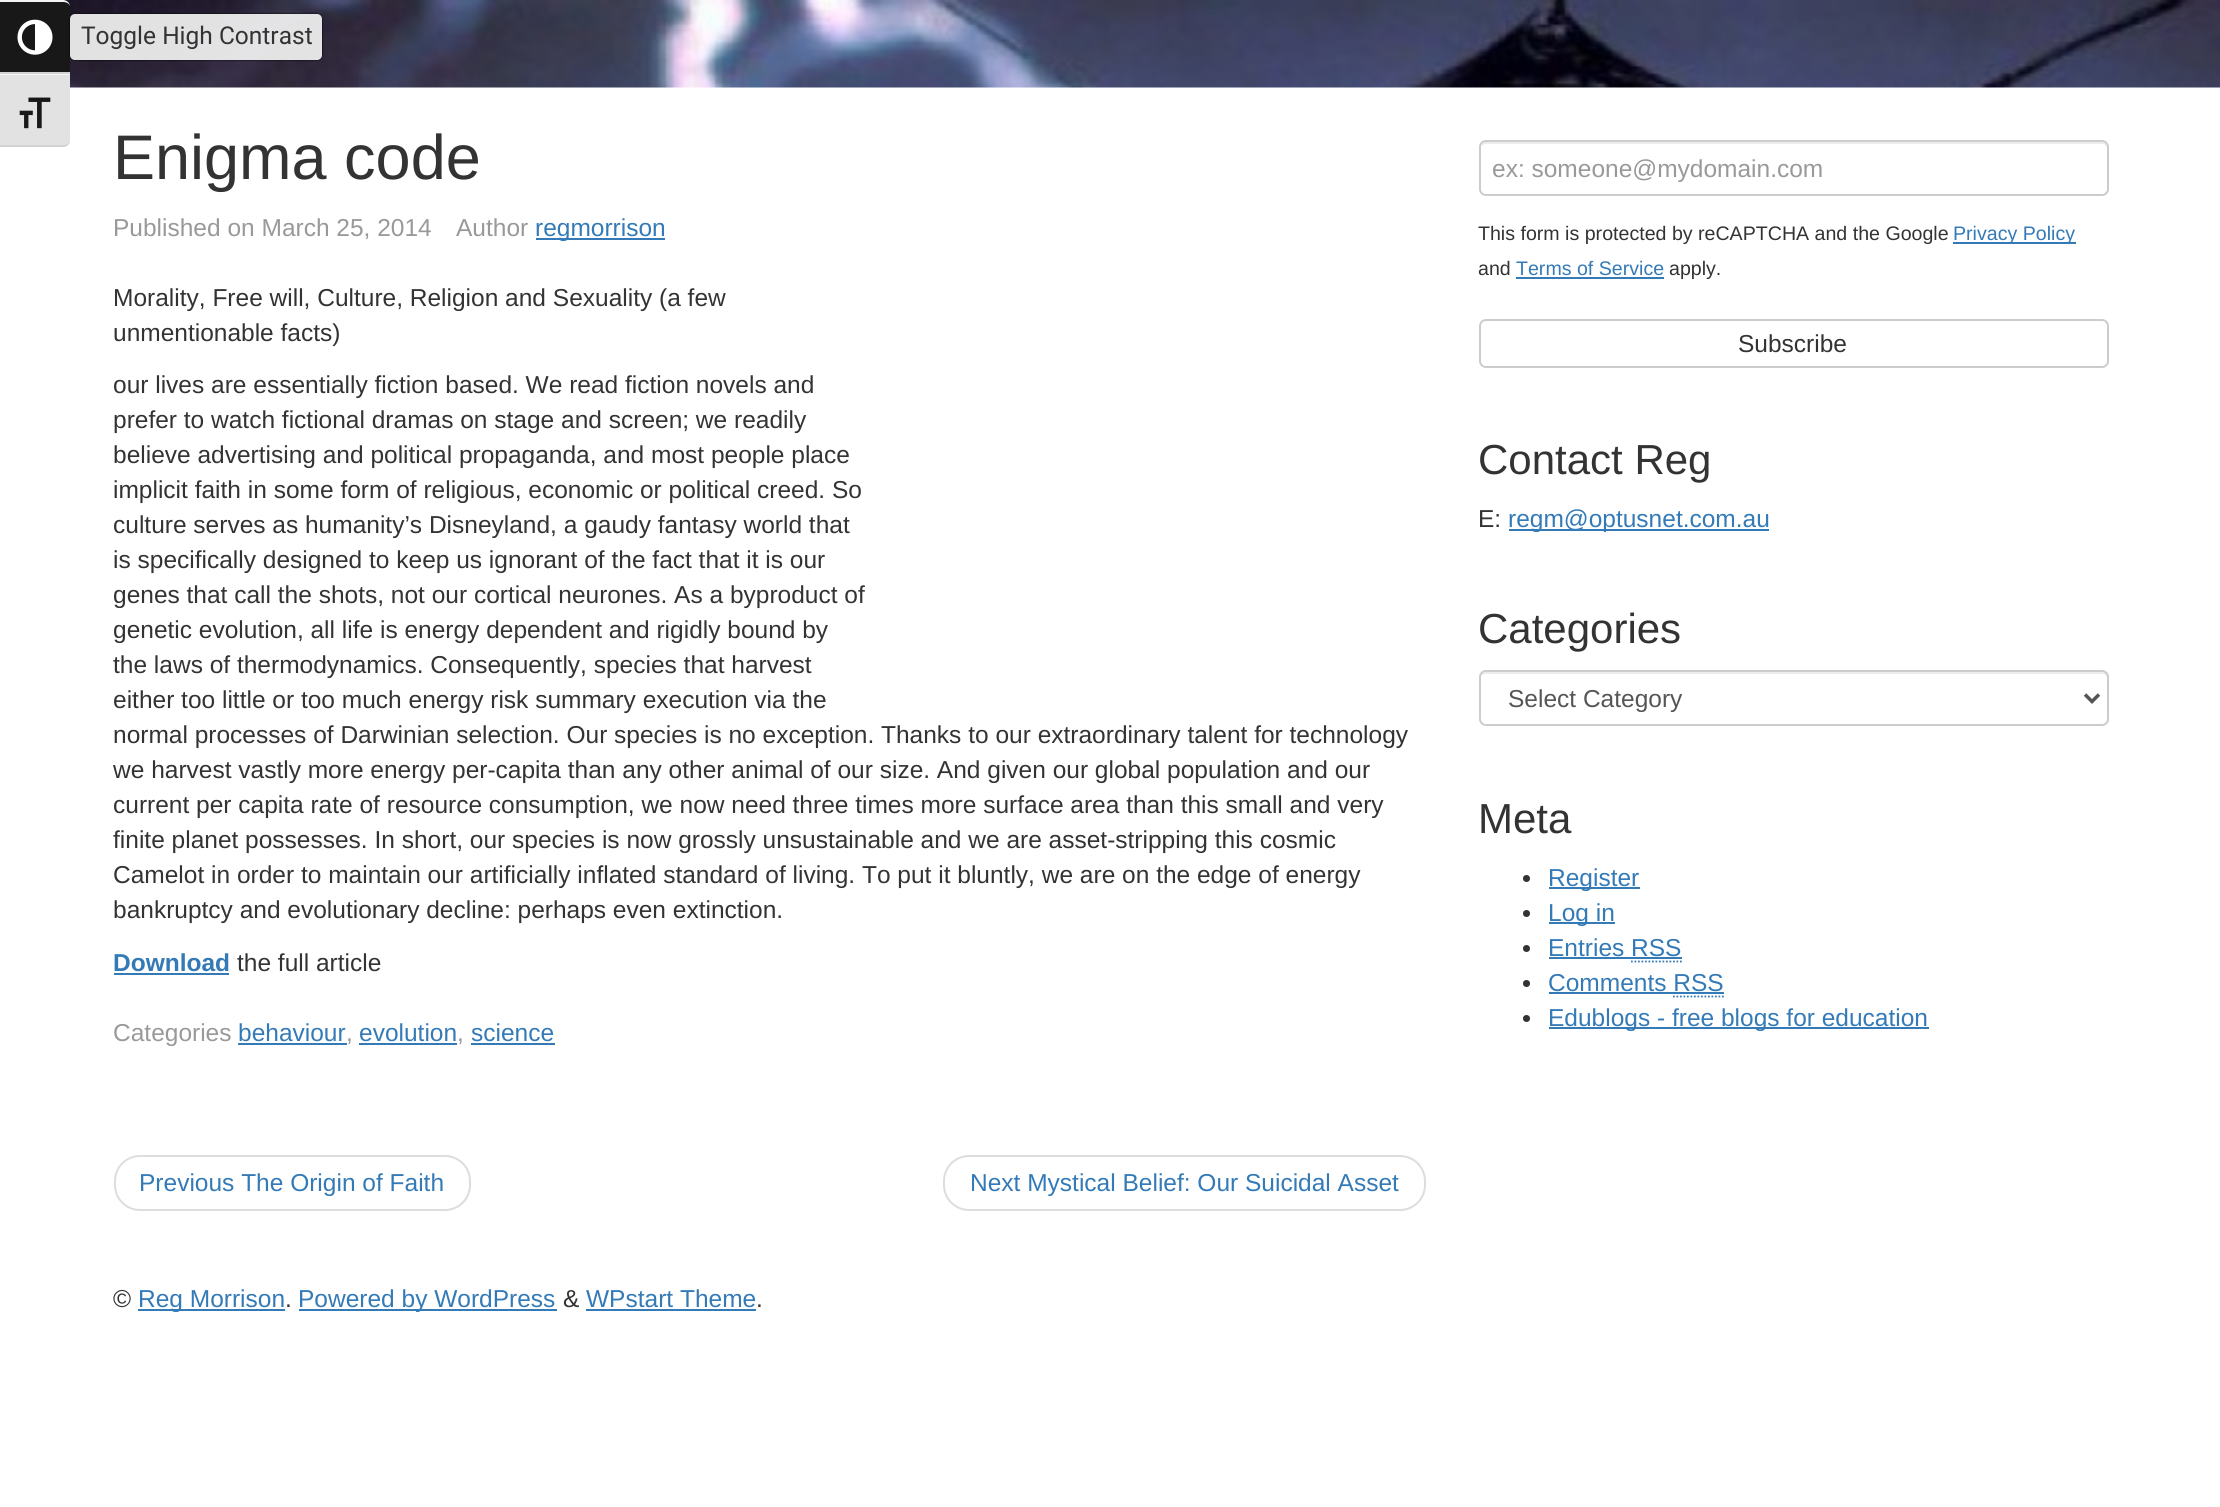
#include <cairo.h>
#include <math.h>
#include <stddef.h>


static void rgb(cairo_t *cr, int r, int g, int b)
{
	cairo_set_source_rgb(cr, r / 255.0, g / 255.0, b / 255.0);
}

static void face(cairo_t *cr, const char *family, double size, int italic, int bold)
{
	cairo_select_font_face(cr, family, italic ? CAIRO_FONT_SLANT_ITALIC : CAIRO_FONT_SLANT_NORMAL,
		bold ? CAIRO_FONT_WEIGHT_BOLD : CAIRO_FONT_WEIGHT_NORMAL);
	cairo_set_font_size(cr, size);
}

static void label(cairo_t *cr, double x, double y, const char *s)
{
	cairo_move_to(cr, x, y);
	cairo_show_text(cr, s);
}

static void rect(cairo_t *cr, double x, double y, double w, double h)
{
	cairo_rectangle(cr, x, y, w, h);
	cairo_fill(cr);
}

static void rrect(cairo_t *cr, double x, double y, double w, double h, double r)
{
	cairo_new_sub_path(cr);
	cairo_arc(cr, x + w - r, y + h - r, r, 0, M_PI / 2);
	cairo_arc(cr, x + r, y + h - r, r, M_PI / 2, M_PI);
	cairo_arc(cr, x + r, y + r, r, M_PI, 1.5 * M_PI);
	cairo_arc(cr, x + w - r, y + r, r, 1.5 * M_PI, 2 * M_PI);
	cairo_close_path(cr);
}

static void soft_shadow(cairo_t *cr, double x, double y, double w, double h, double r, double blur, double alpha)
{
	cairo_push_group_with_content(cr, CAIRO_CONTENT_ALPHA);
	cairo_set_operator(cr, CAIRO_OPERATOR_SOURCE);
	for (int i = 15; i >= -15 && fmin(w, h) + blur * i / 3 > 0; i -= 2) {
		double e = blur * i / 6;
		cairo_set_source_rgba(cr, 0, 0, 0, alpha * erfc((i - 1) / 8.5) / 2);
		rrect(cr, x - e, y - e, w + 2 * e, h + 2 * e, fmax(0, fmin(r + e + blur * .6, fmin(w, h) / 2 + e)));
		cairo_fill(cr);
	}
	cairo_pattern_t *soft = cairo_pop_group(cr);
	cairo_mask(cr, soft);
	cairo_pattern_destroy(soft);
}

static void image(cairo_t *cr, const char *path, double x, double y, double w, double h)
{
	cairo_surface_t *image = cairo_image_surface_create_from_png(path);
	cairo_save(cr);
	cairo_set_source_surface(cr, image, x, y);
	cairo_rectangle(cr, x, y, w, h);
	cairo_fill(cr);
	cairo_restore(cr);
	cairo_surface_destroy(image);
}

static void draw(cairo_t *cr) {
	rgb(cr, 255, 255, 255);
	cairo_paint(cr);
	image(cr, "image2.png", 63, 0, 2157, 88);
	rgb(cr, 24, 24, 24);
	cairo_new_path(cr);
	cairo_move_to(cr, 0, 0);
	cairo_line_to(cr, 63, 0);
	cairo_curve_to(cr, 67, 0, 70, 3, 70, 7);
	cairo_line_to(cr, 70, 74);
	cairo_line_to(cr, 0, 74);
	cairo_close_path(cr);
	cairo_fill(cr);
	rgb(cr, 245, 245, 245);
	cairo_new_path(cr);
	cairo_move_to(cr, 0, 0);
	cairo_line_to(cr, 0, 2);
	cairo_line_to(cr, 63, 2);
	cairo_curve_to(cr, 67, 2, 70, 4, 70, 7);
	cairo_curve_to(cr, 70, 3, 67, 0, 63, 0);
	cairo_close_path(cr);
	cairo_fill(cr);
	rgb(cr, 210, 210, 210);
	rect(cr, 0, 72, 70, 2);
	image(cr, "image0.png", 17, 19, 36, 36);
	rgb(cr, 51, 51, 51);
	rect(cr, 114, 54, 189, 2);
	cairo_save(cr);
	cairo_set_fill_rule(cr, CAIRO_FILL_RULE_EVEN_ODD);
	cairo_new_path(cr);
	cairo_move_to(cr, 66, 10);
	cairo_line_to(cr, 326, 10);
	cairo_line_to(cr, 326, 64);
	cairo_line_to(cr, 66, 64);
	cairo_close_path(cr);
	cairo_move_to(cr, 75, 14);
	cairo_line_to(cr, 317, 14);
	cairo_curve_to(cr, 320, 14, 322, 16, 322, 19);
	cairo_line_to(cr, 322, 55);
	cairo_curve_to(cr, 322, 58, 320, 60, 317, 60);
	cairo_line_to(cr, 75, 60);
	cairo_curve_to(cr, 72, 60, 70, 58, 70, 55);
	cairo_line_to(cr, 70, 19);
	cairo_curve_to(cr, 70, 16, 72, 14, 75, 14);
	cairo_close_path(cr);
	cairo_clip(cr);
	rgb(cr, 0, 0, 0);
	soft_shadow(cr, 70, 14, 252, 46, 5, 1, 1);
	cairo_restore(cr);
	cairo_set_source_rgba(cr, 0.941, 0.941, 0.941, 0.93);
	rrect(cr, 70, 14, 252, 46, 5);
	cairo_fill(cr);
	face(cr, "Roboto", 24.5, 0, 0);
	rgb(cr, 51, 51, 51);
	label(cr, 81, 44, "Toggle High Contrast");
	rgb(cr, 226, 226, 226);
	cairo_new_path(cr);
	cairo_move_to(cr, 0, 74);
	cairo_line_to(cr, 70, 74);
	cairo_line_to(cr, 70, 140);
	cairo_curve_to(cr, 70, 144, 67, 147, 63, 147);
	cairo_line_to(cr, 0, 147);
	cairo_close_path(cr);
	cairo_fill(cr);
	rgb(cr, 245, 245, 245);
	rect(cr, 0, 74, 70, 1);
	rgb(cr, 210, 210, 210);
	cairo_new_path(cr);
	cairo_move_to(cr, 0, 145);
	cairo_line_to(cr, 0, 147);
	cairo_line_to(cr, 63, 147);
	cairo_curve_to(cr, 67, 147, 70, 144, 70, 140);
	cairo_curve_to(cr, 70, 143, 67, 145, 63, 145);
	cairo_close_path(cr);
	cairo_fill(cr);
	image(cr, "image1.png", 19, 97, 32, 32);
	face(cr, "Liberation Sans", 63, 0, 0);
	rgb(cr, 51, 51, 51);
	label(cr, 113, 179, "Enigma code");
	face(cr, "Liberation Sans", 24.5, 0, 0);
	rgb(cr, 153, 153, 153);
	label(cr, 113, 236, "Published on March 25, 2014");
	label(cr, 456, 236, "Author");
	rgb(cr, 51, 122, 183);
	rect(cr, 536, 238, 129, 2);
	label(cr, 535, 236, "regmorrison");
	rgb(cr, 51, 51, 51);
	label(cr, 113, 306, "Morality, Free will, Culture, Religion and Sexuality (a few");
	label(cr, 113, 341, "unmentionable facts)");
	label(cr, 113, 393, "our lives are essentially fiction based. We read fiction novels and");
	label(cr, 113, 428, "prefer to watch fictional dramas on stage and screen; we readily");
	label(cr, 113, 463, "believe advertising and political propaganda, and most people place");
	label(cr, 113, 498, "implicit faith in some form of religious, economic or political creed. So");
	label(cr, 113, 533, "culture serves as humanity’s Disneyland, a gaudy fantasy world that");
	label(cr, 113, 568, "is specifically designed to keep us ignorant of the fact that it is our");
	label(cr, 113, 603, "genes that call the shots, not our cortical neurones. As a byproduct of");
	label(cr, 113, 638, "genetic evolution, all life is energy dependent and rigidly bound by");
	label(cr, 113, 673, "the laws of thermodynamics. Consequently, species that harvest");
	label(cr, 113, 708, "either too little or too much energy risk summary execution via the");
	label(cr, 113, 743, "normal processes of Darwinian selection. Our species is no exception. Thanks to our extraordinary talent for technology");
	label(cr, 113, 778, "we harvest vastly more energy per-capita than any other animal of our size. And given our global population and our");
	label(cr, 113, 813, "current per capita rate of resource consumption, we now need three times more surface area than this small and very");
	label(cr, 113, 848, "finite planet possesses. In short, our species is now grossly unsustainable and we are asset-stripping this cosmic");
	label(cr, 113, 883, "Camelot in order to maintain our artificially inflated standard of living. To put it bluntly, we are on the edge of energy");
	label(cr, 113, 918, "bankruptcy and evolutionary decline: perhaps even extinction.");
	face(cr, "Liberation Sans", 24.5, 0, 1);
	rgb(cr, 51, 122, 183);
	label(cr, 113, 971, "Download");
	rect(cr, 114, 973, 115, 2);
	face(cr, "Liberation Sans", 24.5, 0, 0);
	rgb(cr, 51, 51, 51);
	label(cr, 237, 971, "the full article");
	rgb(cr, 153, 153, 153);
	label(cr, 113, 1041, "Categories");
	rgb(cr, 51, 122, 183);
	label(cr, 238, 1041, "behaviour");
	rgb(cr, 153, 153, 153);
	label(cr, 346, 1041, ",");
	rgb(cr, 51, 122, 183);
	rect(cr, 238, 1043, 109, 2);
	label(cr, 359, 1041, "evolution");
	rgb(cr, 153, 153, 153);
	label(cr, 457, 1041, ",");
	rgb(cr, 51, 122, 183);
	rect(cr, 359, 1043, 98, 2);
	rect(cr, 471, 1043, 84, 2);
	label(cr, 471, 1041, "science");
	rrect(cr, 115, 1156, 355, 54, 25);
	rgb(cr, 221, 221, 221);
	cairo_stroke(cr);
	rgb(cr, 51, 122, 183);
	label(cr, 139, 1191, "Previous The Origin of Faith");
	rrect(cr, 944, 1156, 481, 54, 25);
	rgb(cr, 221, 221, 221);
	cairo_stroke(cr);
	rgb(cr, 51, 122, 183);
	label(cr, 970, 1191, "Next Mystical Belief: Our Suicidal Asset");
	rgb(cr, 236, 236, 236);
	cairo_new_path(cr);
	cairo_move_to(cr, 1486, 144);
	cairo_line_to(cr, 2102, 144);
	cairo_curve_to(cr, 2105, 144, 2107, 146, 2107, 149);
	cairo_line_to(cr, 2107, 147);
	cairo_curve_to(cr, 2107, 144, 2105, 142, 2102, 142);
	cairo_line_to(cr, 1486, 142);
	cairo_curve_to(cr, 1484, 142, 1481, 144, 1481, 146);
	cairo_curve_to(cr, 1482, 145, 1484, 144, 1486, 144);
	cairo_close_path(cr);
	cairo_fill(cr);
	rrect(cr, 1480, 141, 628, 54, 6);
	rgb(cr, 204, 204, 204);
	cairo_stroke(cr);
	rgb(cr, 153, 153, 153);
	label(cr, 1492, 177, "ex: someone@mydomain.com");
	face(cr, "Liberation Sans", 19.6, 0, 0);
	rgb(cr, 51, 51, 51);
	label(cr, 1478, 240, "This form is protected by reCAPTCHA and the Google");
	rgb(cr, 51, 122, 183);
	rect(cr, 1953, 242, 123, 2);
	label(cr, 1953, 240, "Privacy Policy");
	rgb(cr, 51, 51, 51);
	label(cr, 1478, 275, "and");
	rgb(cr, 51, 122, 183);
	label(cr, 1516, 275, "Terms of Service");
	rect(cr, 1516, 277, 148, 2);
	rgb(cr, 51, 51, 51);
	label(cr, 1669, 275, "apply.");
	rrect(cr, 1480, 320, 628, 47, 6);
	rgb(cr, 204, 204, 204);
	cairo_stroke(cr);
	face(cr, "Liberation Sans", 24.5, 0, 0);
	rgb(cr, 51, 51, 51);
	label(cr, 1738, 352, "Subscribe");
	face(cr, "Liberation Sans", 42, 0, 0);
	label(cr, 1478, 474, "Contact Reg");
	face(cr, "Liberation Sans", 24.5, 0, 0);
	label(cr, 1478, 527, "E:");
	rgb(cr, 51, 122, 183);
	rect(cr, 1509, 529, 260, 2);
	label(cr, 1508, 527, "regm@optusnet.com.au");
	face(cr, "Liberation Sans", 42, 0, 0);
	rgb(cr, 51, 51, 51);
	label(cr, 1478, 643, "Categories");
	rgb(cr, 236, 236, 236);
	cairo_new_path(cr);
	cairo_move_to(cr, 1486, 674);
	cairo_line_to(cr, 2102, 674);
	cairo_curve_to(cr, 2105, 674, 2107, 676, 2107, 679);
	cairo_line_to(cr, 2107, 677);
	cairo_curve_to(cr, 2107, 674, 2105, 672, 2102, 672);
	cairo_line_to(cr, 1486, 672);
	cairo_curve_to(cr, 1484, 672, 1481, 674, 1481, 676);
	cairo_curve_to(cr, 1482, 675, 1484, 674, 1486, 674);
	cairo_close_path(cr);
	cairo_fill(cr);
	rrect(cr, 1480, 671, 628, 54, 6);
	rgb(cr, 204, 204, 204);
	cairo_stroke(cr);
	cairo_new_path(cr);
	cairo_move_to(cr, 2085, 694.5);
	cairo_line_to(cr, 2092, 701.5);
	cairo_line_to(cr, 2099, 694.5);
	rgb(cr, 85, 85, 85);
	cairo_set_line_width(cr, 3.5);
	cairo_stroke(cr);
	face(cr, "Liberation Sans", 24.5, 0, 0);
	label(cr, 1508, 707, "Select Category");
	face(cr, "Liberation Sans", 42, 0, 0);
	rgb(cr, 51, 51, 51);
	label(cr, 1478, 833, "Meta");
	cairo_new_path(cr);
	cairo_arc(cr, 1526.5, 878.5, 3.5, 0, 2 * M_PI);
	cairo_fill(cr);
	rgb(cr, 51, 122, 183);
	rect(cr, 1549, 887, 91, 2);
	face(cr, "Liberation Sans", 24.5, 0, 0);
	label(cr, 1548, 886, "Register");
	rgb(cr, 51, 51, 51);
	cairo_new_path(cr);
	cairo_arc(cr, 1526.5, 913.5, 3.5, 0, 2 * M_PI);
	cairo_fill(cr);
	rgb(cr, 51, 122, 183);
	rect(cr, 1549, 922, 66, 2);
	label(cr, 1548, 921, "Log in");
	rgb(cr, 51, 51, 51);
	cairo_new_path(cr);
	cairo_arc(cr, 1526.5, 948.5, 3.5, 0, 2 * M_PI);
	cairo_fill(cr);
	rgb(cr, 51, 122, 183);
	label(cr, 1548, 956, "Entries RSS");
	rect(cr, 1549, 957, 133, 2);
	cairo_new_path(cr);
	cairo_move_to(cr, 1631, 961.5);
	cairo_line_to(cr, 1682, 961.5);
	cairo_set_line_width(cr, 1.8);
	cairo_set_dash(cr, (double[]){1.75, 1.75}, 2, 0);
	cairo_stroke(cr);
	rgb(cr, 51, 51, 51);
	cairo_arc(cr, 1526.5, 983.5, 3.5, 0, 2 * M_PI);
	cairo_fill(cr);
	rgb(cr, 51, 122, 183);
	label(cr, 1548, 991, "Comments RSS");
	rect(cr, 1549, 992, 175, 2);
	cairo_new_path(cr);
	cairo_move_to(cr, 1673, 996.5);
	cairo_line_to(cr, 1724, 996.5);
	cairo_stroke(cr);
	rgb(cr, 51, 51, 51);
	cairo_arc(cr, 1526.5, 1018.5, 3.5, 0, 2 * M_PI);
	cairo_fill(cr);
	rgb(cr, 51, 122, 183);
	rect(cr, 1549, 1027, 380, 2);
	label(cr, 1548, 1026, "Edublogs - free blogs for education");
	rgb(cr, 51, 51, 51);
	label(cr, 113, 1307, "©");
	rgb(cr, 51, 122, 183);
	rect(cr, 138, 1309, 147, 2);
	label(cr, 138, 1307, "Reg Morrison");
	rgb(cr, 51, 51, 51);
	label(cr, 285, 1307, ".");
	rgb(cr, 51, 122, 183);
	rect(cr, 299, 1309, 258, 2);
	label(cr, 298, 1307, "Powered by WordPress");
	rgb(cr, 51, 51, 51);
	label(cr, 563, 1307, "&");
	rgb(cr, 51, 122, 183);
	label(cr, 586, 1307, "WPstart Theme");
	rect(cr, 586, 1309, 170, 2);
	rgb(cr, 51, 51, 51);
	label(cr, 756, 1307, ".");
}

int main(void) {
	cairo_surface_t *surface = cairo_image_surface_create(CAIRO_FORMAT_RGB24, 2220, 1507);
	cairo_t *cr = cairo_create(surface);
	cairo_font_options_t *options = cairo_font_options_create();
	cairo_font_options_set_hint_metrics(options, CAIRO_HINT_METRICS_OFF);
	cairo_font_options_set_hint_style(options, CAIRO_HINT_STYLE_NONE);
	cairo_set_font_options(cr, options);
	cairo_set_miter_limit(cr, 4);
	draw(cr);
	cairo_surface_write_to_png(surface, "render.png");
	cairo_font_options_destroy(options);
	cairo_destroy(cr);
	cairo_surface_destroy(surface);
	return 0;
}
